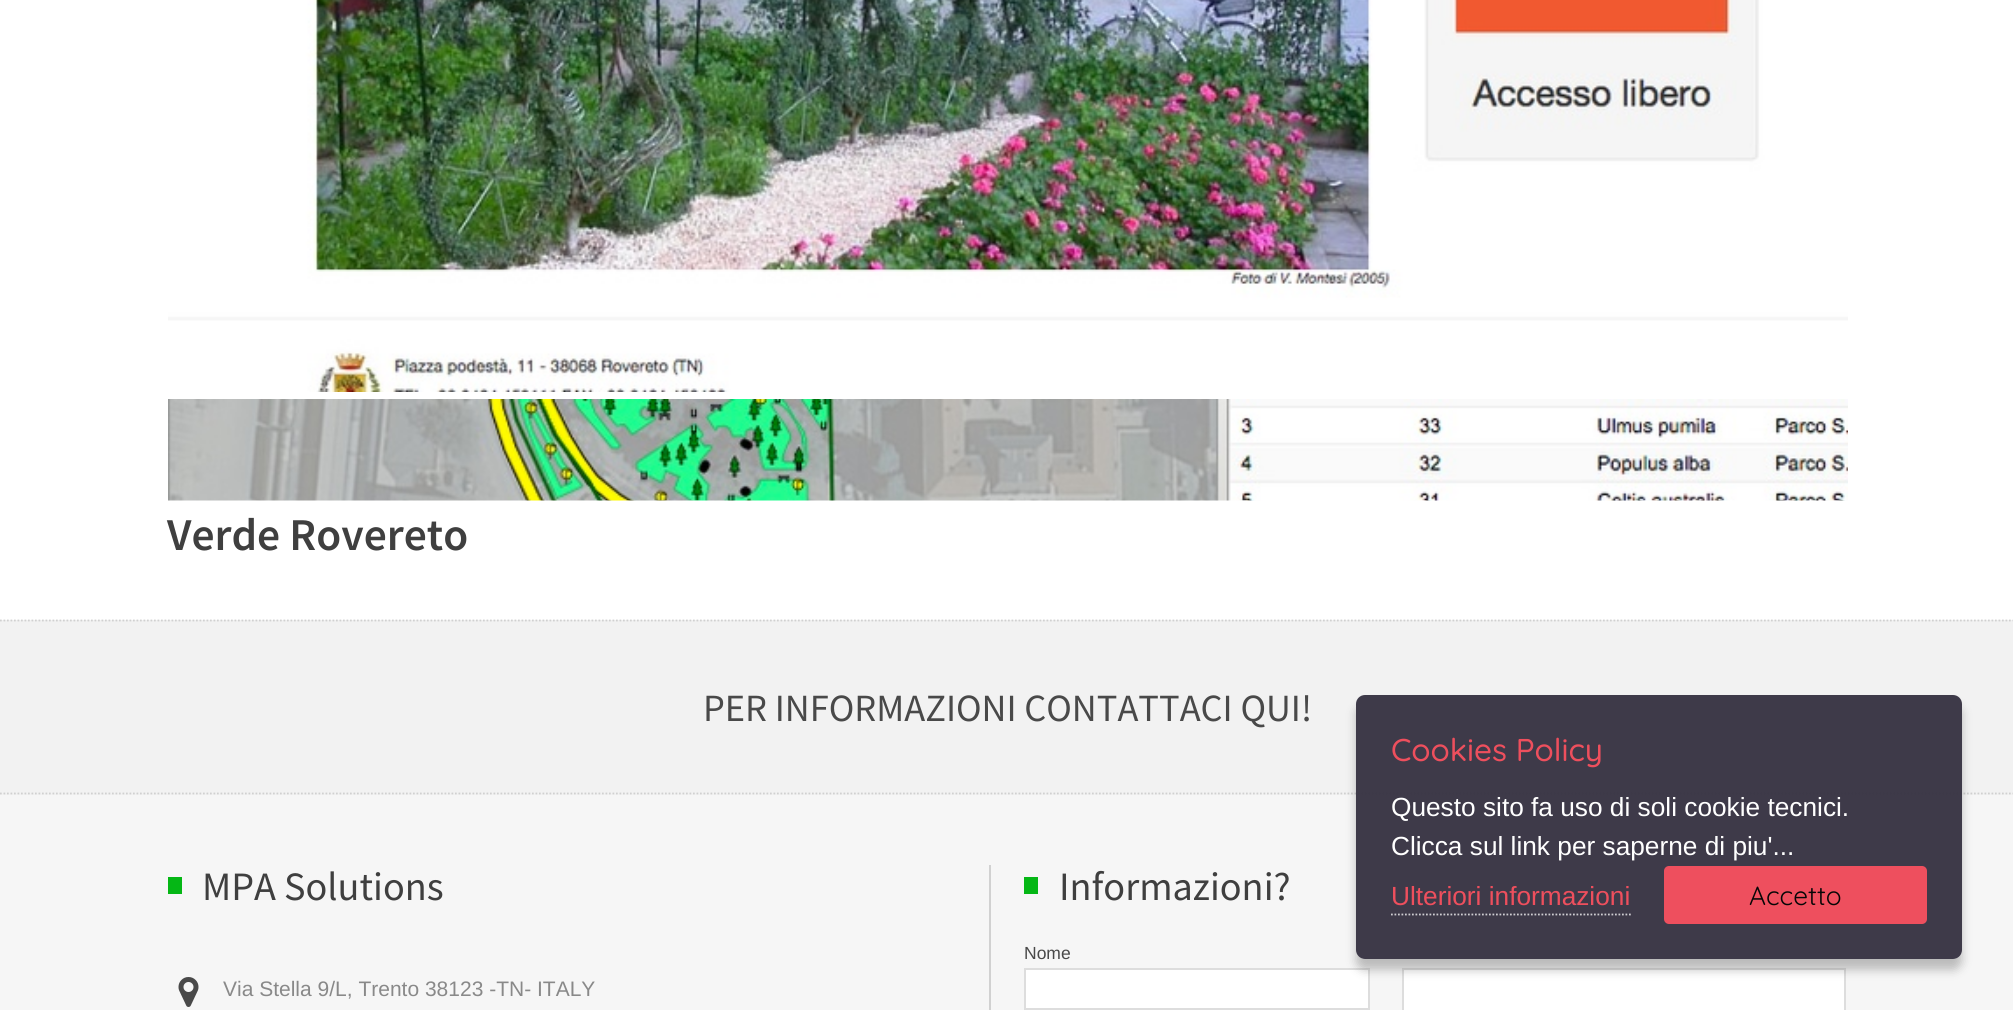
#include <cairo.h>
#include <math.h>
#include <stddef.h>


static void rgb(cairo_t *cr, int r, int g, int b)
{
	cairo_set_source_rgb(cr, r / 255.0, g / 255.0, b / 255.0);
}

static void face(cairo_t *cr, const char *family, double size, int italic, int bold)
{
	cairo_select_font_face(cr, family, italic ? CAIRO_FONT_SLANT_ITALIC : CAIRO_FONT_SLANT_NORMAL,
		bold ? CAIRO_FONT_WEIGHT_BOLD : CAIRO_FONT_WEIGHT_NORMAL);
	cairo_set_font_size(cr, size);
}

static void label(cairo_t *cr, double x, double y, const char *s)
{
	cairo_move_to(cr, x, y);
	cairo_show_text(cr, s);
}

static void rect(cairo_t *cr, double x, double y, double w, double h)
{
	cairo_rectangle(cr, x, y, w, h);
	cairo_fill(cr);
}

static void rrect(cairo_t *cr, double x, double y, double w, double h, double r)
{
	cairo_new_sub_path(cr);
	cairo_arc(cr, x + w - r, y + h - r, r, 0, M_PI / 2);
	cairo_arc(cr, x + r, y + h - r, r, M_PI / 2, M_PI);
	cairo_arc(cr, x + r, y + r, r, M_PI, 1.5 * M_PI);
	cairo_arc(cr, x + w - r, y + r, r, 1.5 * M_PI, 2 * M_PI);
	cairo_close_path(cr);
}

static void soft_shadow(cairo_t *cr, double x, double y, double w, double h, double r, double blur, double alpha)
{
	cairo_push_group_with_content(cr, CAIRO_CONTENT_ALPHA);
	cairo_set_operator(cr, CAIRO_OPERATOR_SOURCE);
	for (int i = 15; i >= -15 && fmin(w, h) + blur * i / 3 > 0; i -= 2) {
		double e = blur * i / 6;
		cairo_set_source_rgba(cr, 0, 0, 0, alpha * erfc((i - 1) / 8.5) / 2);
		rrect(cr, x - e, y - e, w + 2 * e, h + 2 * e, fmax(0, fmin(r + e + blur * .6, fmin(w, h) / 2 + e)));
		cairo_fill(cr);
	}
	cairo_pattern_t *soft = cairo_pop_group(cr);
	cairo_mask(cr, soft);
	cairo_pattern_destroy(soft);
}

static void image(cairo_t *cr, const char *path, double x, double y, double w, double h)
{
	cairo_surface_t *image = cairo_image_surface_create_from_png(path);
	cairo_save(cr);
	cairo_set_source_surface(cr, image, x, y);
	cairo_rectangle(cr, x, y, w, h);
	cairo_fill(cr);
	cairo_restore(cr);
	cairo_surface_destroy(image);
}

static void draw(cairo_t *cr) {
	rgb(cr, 255, 255, 255);
	cairo_paint(cr);
	image(cr, "image0.png", 168, 0, 1680, 392);
	image(cr, "image1.png", 168, 399, 1680, 102);
	face(cr, "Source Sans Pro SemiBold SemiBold", 45.5, 0, 0);
	rgb(cr, 63, 63, 63);
	label(cr, 167, 550, "Verde Rovereto");
	rgb(cr, 246, 246, 246);
	rect(cr, 0, 795, 2013, 215);
	rgb(cr, 242, 242, 242);
	rect(cr, 0, 620, 2013, 175);
	cairo_new_path(cr);
	cairo_move_to(cr, 0, 620.5);
	cairo_line_to(cr, 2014, 620.5);
	rgb(cr, 208, 208, 208);
	cairo_set_line_width(cr, 1.8);
	cairo_set_dash(cr, (double[]){1.75, 1.75}, 2, 0);
	cairo_stroke(cr);
	cairo_new_path(cr);
	cairo_move_to(cr, 0, 793.5);
	cairo_line_to(cr, 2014, 793.5);
	cairo_stroke(cr);
	face(cr, "Source Sans Pro", 38.5, 0, 0);
	rgb(cr, 73, 73, 73);
	label(cr, 703, 721, "PER INFORMAZIONI CONTATTACI QUI!");
	rgb(cr, 209, 209, 209);
	rect(cr, 989, 865, 2, 145);
	rgb(cr, 5, 183, 21);
	rect(cr, 168, 877, 14, 17);
	face(cr, "Source Sans Pro", 40.25, 0, 0);
	rgb(cr, 63, 63, 63);
	label(cr, 202, 900, "MPA Solutions");
	image(cr, "image2.png", 178, 977, 21, 30);
	face(cr, "Liberation Sans", 21, 0, 0);
	rgb(cr, 137, 137, 137);
	label(cr, 223, 996, "Via Stella 9/L, Trento 38123 -TN- ITALY");
	rgb(cr, 5, 183, 21);
	rect(cr, 1024, 877, 14, 17);
	face(cr, "Source Sans Pro", 40.25, 0, 0);
	rgb(cr, 63, 63, 63);
	label(cr, 1059, 900, "Informazioni?");
	face(cr, "Liberation Sans", 17.5, 0, 0);
	rgb(cr, 73, 73, 73);
	label(cr, 1024, 959, "Nome");
	rgb(cr, 255, 255, 255);
	cairo_rectangle(cr, 1025, 969, 344, 40);
	cairo_fill_preserve(cr);
	rgb(cr, 221, 221, 221);
	cairo_set_line_width(cr, 2);
	cairo_set_dash(cr, NULL, 0, 0);
	cairo_stroke(cr);
	rgb(cr, 255, 255, 255);
	cairo_rectangle(cr, 1403, 969, 442, 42);
	cairo_fill_preserve(cr);
	rgb(cr, 221, 221, 221);
	cairo_stroke(cr);
	cairo_save(cr);
	cairo_set_fill_rule(cr, CAIRO_FILL_RULE_EVEN_ODD);
	cairo_new_path(cr);
	cairo_move_to(cr, 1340, 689);
	cairo_line_to(cr, 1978, 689);
	cairo_line_to(cr, 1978, 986);
	cairo_line_to(cr, 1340, 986);
	cairo_close_path(cr);
	cairo_move_to(cr, 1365, 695);
	cairo_line_to(cr, 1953, 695);
	cairo_curve_to(cr, 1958, 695, 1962, 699, 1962, 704);
	cairo_line_to(cr, 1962, 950);
	cairo_curve_to(cr, 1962, 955, 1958, 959, 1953, 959);
	cairo_line_to(cr, 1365, 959);
	cairo_curve_to(cr, 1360, 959, 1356, 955, 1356, 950);
	cairo_line_to(cr, 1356, 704);
	cairo_curve_to(cr, 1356, 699, 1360, 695, 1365, 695);
	cairo_close_path(cr);
	cairo_clip(cr);
	rgb(cr, 0, 0, 0);
	soft_shadow(cr, 1356, 705, 606, 265, 9, 5, 0.24);
	cairo_restore(cr);
	cairo_set_source_rgba(cr, 0.231, 0.212, 0.275, 0.98);
	rrect(cr, 1356, 695, 606, 264, 9);
	cairo_fill(cr);
	face(cr, "Quicksand Medium", 31.5, 0, 0);
	rgb(cr, 238, 79, 93);
	label(cr, 1391, 761, "Cookies Policy");
	face(cr, "Liberation Sans", 26.25, 0, 0);
	rgb(cr, 255, 255, 255);
	label(cr, 1391, 816, "Questo sito fa uso di soli cookie tecnici.");
	label(cr, 1391, 855, "Clicca sul link per saperne di piu'...");
	rgb(cr, 238, 79, 93);
	label(cr, 1391, 905, "Ulteriori informazioni");
	cairo_new_path(cr);
	cairo_move_to(cr, 1391, 914.5);
	cairo_line_to(cr, 1631, 914.5);
	rgb(cr, 207, 206, 210);
	cairo_set_line_width(cr, 1.8);
	cairo_set_dash(cr, (double[]){1.75, 1.75}, 2, 0);
	cairo_stroke(cr);
	rgb(cr, 238, 79, 94);
	rrect(cr, 1664, 866, 263, 58, 5);
	cairo_fill(cr);
	face(cr, "Quicksand", 26.25, 0, 0);
	rgb(cr, 6, 6, 6);
	label(cr, 1749, 905, "Accetto");
}

int main(void) {
	cairo_surface_t *surface = cairo_image_surface_create(CAIRO_FORMAT_RGB24, 2013, 1010);
	cairo_t *cr = cairo_create(surface);
	cairo_font_options_t *options = cairo_font_options_create();
	cairo_font_options_set_hint_metrics(options, CAIRO_HINT_METRICS_OFF);
	cairo_font_options_set_hint_style(options, CAIRO_HINT_STYLE_NONE);
	cairo_set_font_options(cr, options);
	cairo_set_miter_limit(cr, 4);
	draw(cr);
	cairo_surface_write_to_png(surface, "render.png");
	cairo_font_options_destroy(options);
	cairo_destroy(cr);
	cairo_surface_destroy(surface);
	return 0;
}
